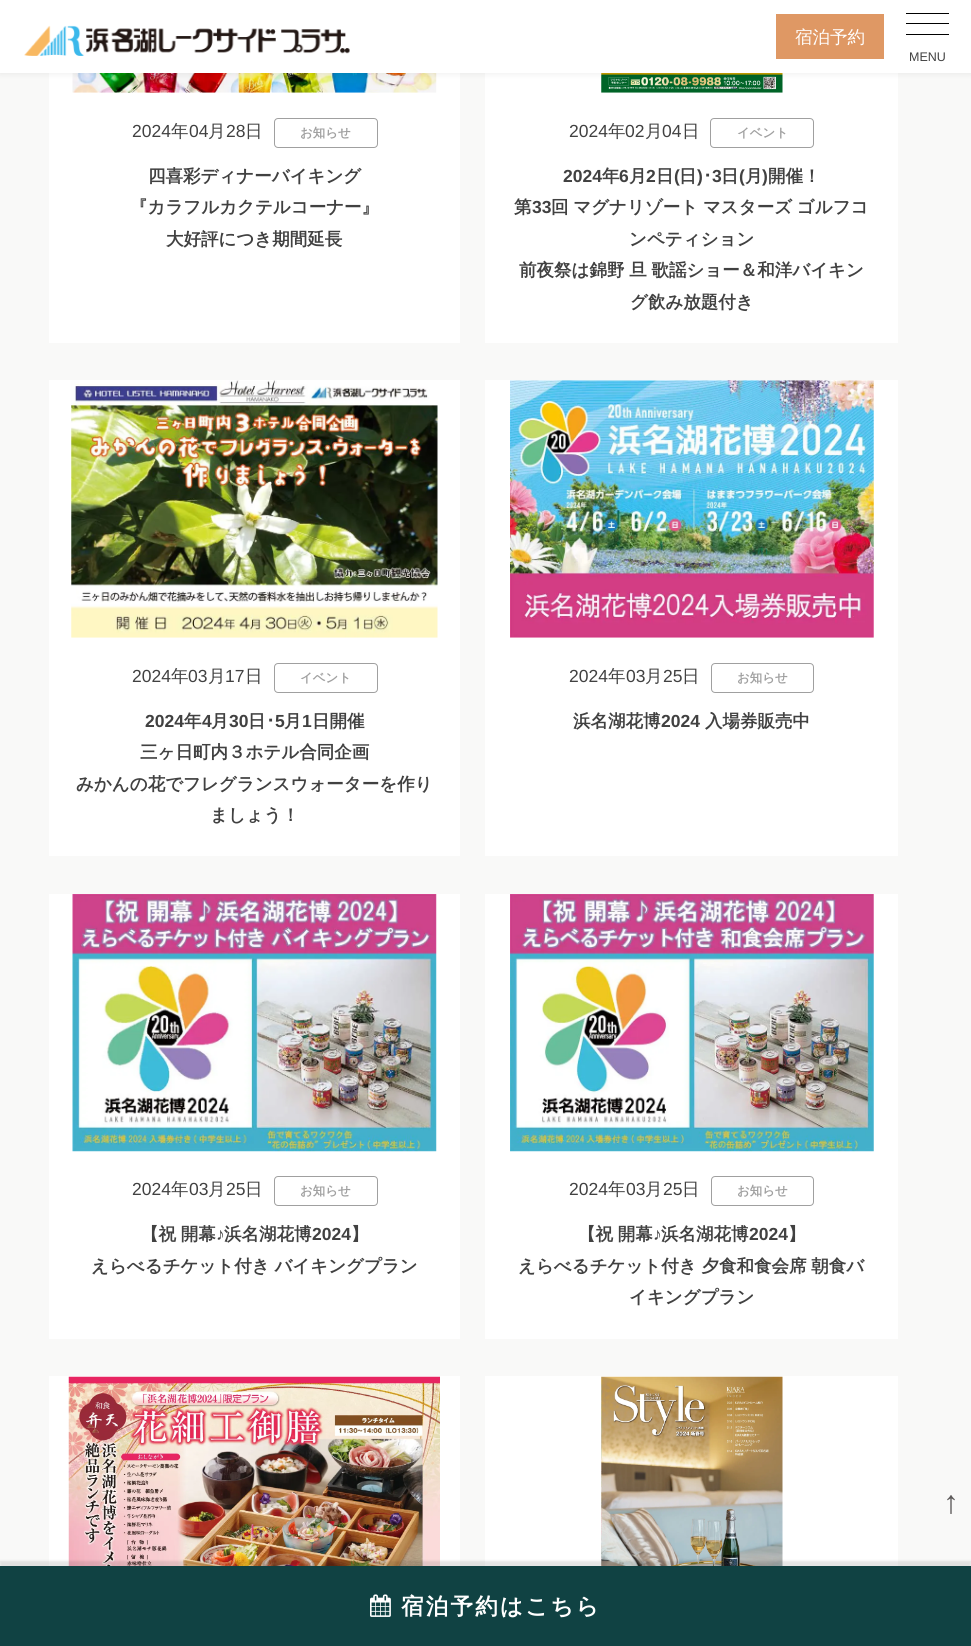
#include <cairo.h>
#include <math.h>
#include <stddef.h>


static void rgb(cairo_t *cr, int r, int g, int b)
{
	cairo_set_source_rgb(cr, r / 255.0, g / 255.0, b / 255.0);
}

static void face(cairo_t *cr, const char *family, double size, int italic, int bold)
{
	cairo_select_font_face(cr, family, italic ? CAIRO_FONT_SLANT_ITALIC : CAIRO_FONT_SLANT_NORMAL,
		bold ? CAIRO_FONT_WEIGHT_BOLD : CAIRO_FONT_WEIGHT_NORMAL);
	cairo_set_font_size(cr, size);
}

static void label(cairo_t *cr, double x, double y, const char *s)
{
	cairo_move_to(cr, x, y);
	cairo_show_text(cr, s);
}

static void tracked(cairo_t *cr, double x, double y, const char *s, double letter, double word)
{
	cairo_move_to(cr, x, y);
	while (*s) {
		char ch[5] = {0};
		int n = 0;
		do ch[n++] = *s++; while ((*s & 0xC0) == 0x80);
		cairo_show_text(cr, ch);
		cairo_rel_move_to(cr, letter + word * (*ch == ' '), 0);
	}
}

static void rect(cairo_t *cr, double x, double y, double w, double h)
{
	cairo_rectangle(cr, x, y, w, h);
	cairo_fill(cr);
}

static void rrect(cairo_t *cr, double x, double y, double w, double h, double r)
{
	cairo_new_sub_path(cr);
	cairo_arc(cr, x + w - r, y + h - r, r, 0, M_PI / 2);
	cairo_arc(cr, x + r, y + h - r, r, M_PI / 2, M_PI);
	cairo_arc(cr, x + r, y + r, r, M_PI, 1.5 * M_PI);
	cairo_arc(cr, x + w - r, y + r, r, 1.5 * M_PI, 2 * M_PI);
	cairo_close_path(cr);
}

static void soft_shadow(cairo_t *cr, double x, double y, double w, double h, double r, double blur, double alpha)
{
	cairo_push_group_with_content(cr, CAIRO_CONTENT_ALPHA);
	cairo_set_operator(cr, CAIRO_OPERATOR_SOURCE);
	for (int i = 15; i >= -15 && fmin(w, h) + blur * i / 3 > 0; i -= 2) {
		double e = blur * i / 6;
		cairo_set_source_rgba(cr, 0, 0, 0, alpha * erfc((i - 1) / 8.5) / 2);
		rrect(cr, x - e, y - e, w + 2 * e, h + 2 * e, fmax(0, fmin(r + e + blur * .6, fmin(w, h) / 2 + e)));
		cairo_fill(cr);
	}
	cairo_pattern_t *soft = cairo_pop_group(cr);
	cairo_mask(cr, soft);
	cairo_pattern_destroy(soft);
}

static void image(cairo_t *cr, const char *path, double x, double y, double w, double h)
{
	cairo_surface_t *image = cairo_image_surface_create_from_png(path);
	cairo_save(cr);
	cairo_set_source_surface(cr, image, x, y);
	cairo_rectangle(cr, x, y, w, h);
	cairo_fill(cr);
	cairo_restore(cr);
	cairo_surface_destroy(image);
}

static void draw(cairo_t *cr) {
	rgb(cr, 249, 249, 248);
	cairo_paint(cr);
	rgb(cr, 255, 255, 255);
	rect(cr, 49, 73, 411, 270);
	image(cr, "image1.png", 72, 73, 365, 20);
	rect(cr, 485, 73, 413, 270);
	image(cr, "image2.png", 601, 73, 182, 20);
	rgb(cr, 0, 0, 0);
	soft_shadow(cr, 0, 0, 971, 73, 0, 4, 0.08);
	rgb(cr, 255, 255, 255);
	rect(cr, 0, 0, 971, 73);
	image(cr, "image0.png", 24, 25, 326, 31);
	rgb(cr, 223, 152, 100);
	rect(cr, 776, 14, 108, 45);
	face(cr, "WenQuanYi Zen Hei Medium", 17.5, 0, 0);
	rgb(cr, 255, 255, 255);
	label(cr, 795, 43, "宿泊予約");
	rgb(cr, 0, 0, 0);
	rect(cr, 906, 13, 43, 1);
	rect(cr, 906, 23, 43, 1);
	rect(cr, 906, 34, 43, 1);
	face(cr, "Liberation Sans", 12.5, 0, 0);
	rgb(cr, 65, 65, 65);
	label(cr, 909, 61, "MENU");
	face(cr, "Liberation Sans", 17.5, 0, 0);
	label(cr, 132, 137, "2024");
	face(cr, "WenQuanYi Zen Hei Medium", 17.5, 0, 0);
	label(cr, 171, 137, "年");
	face(cr, "Liberation Sans", 17.5, 0, 0);
	label(cr, 189, 137, "04");
	face(cr, "WenQuanYi Zen Hei Medium", 17.5, 0, 0);
	label(cr, 208, 137, "月");
	face(cr, "Liberation Sans", 17.5, 0, 0);
	label(cr, 226, 137, "28");
	face(cr, "WenQuanYi Zen Hei Medium", 17.5, 0, 0);
	label(cr, 245, 137, "日");
	rrect(cr, 274.5, 118.5, 103, 29, 3.5);
	rgb(cr, 160, 160, 160);
	cairo_set_line_width(cr, 1);
	cairo_stroke(cr);
	face(cr, "WenQuanYi Zen Hei", 12.5, 0, 1);
	label(cr, 300, 137, "お知らせ");
	face(cr, "WenQuanYi Zen Hei", 17.5, 0, 1);
	rgb(cr, 65, 65, 65);
	label(cr, 148, 182, "四喜彩ディナーバイキング");
	label(cr, 130, 213, "『カラフルカクテルコーナー』");
	label(cr, 166, 245, "大好評につき期間延長");
	face(cr, "Liberation Sans", 17.5, 0, 0);
	label(cr, 569, 137, "2024");
	face(cr, "WenQuanYi Zen Hei Medium", 17.5, 0, 0);
	label(cr, 608, 137, "年");
	face(cr, "Liberation Sans", 17.5, 0, 0);
	label(cr, 625, 137, "02");
	face(cr, "WenQuanYi Zen Hei Medium", 17.5, 0, 0);
	label(cr, 645, 137, "月");
	face(cr, "Liberation Sans", 17.5, 0, 0);
	label(cr, 662, 137, "04");
	face(cr, "WenQuanYi Zen Hei Medium", 17.5, 0, 0);
	label(cr, 682, 137, "日");
	rrect(cr, 710.5, 118.5, 103, 29, 3.5);
	rgb(cr, 160, 160, 160);
	cairo_stroke(cr);
	face(cr, "WenQuanYi Zen Hei", 12.5, 0, 1);
	label(cr, 737, 137, "イベント");
	face(cr, "Liberation Sans", 17.5, 0, 1);
	rgb(cr, 65, 65, 65);
	label(cr, 563, 182, "2024");
	face(cr, "WenQuanYi Zen Hei", 17.5, 0, 1);
	label(cr, 602, 182, "年");
	face(cr, "Liberation Sans", 17.5, 0, 1);
	label(cr, 619, 182, "6");
	face(cr, "WenQuanYi Zen Hei", 17.5, 0, 1);
	label(cr, 629, 182, "月");
	face(cr, "Liberation Sans", 17.5, 0, 1);
	label(cr, 646, 182, "2");
	face(cr, "WenQuanYi Zen Hei", 17.5, 0, 1);
	label(cr, 656, 182, "日");
	face(cr, "Liberation Sans", 17.5, 0, 1);
	label(cr, 674, 182, "(");
	face(cr, "WenQuanYi Zen Hei", 17.5, 0, 1);
	label(cr, 679, 182, "日");
	face(cr, "Liberation Sans", 17.5, 0, 1);
	label(cr, 697, 182, ")");
	face(cr, "IPAPGothic", 17.5, 0, 1);
	label(cr, 703, 182, "･");
	face(cr, "Liberation Sans", 17.5, 0, 1);
	label(cr, 712, 182, "3");
	face(cr, "WenQuanYi Zen Hei", 17.5, 0, 1);
	label(cr, 721, 182, "日");
	face(cr, "Liberation Sans", 17.5, 0, 1);
	label(cr, 739, 182, "(");
	face(cr, "WenQuanYi Zen Hei", 17.5, 0, 1);
	label(cr, 745, 182, "月");
	face(cr, "Liberation Sans", 17.5, 0, 1);
	label(cr, 762, 182, ")");
	face(cr, "WenQuanYi Zen Hei", 17.5, 0, 1);
	label(cr, 768, 182, "開催！");
	label(cr, 514, 213, "第");
	face(cr, "Liberation Sans", 17.5, 0, 1);
	label(cr, 532, 213, "33");
	face(cr, "WenQuanYi Zen Hei", 17.5, 0, 1);
	tracked(cr, 551, 213, "回 マグナリゾート マスターズ ゴルフコ", 0, -0.5);
	label(cr, 629, 245, "ンペティション");
	tracked(cr, 519, 276, "前夜祭は錦野 旦 歌謡ショー＆和洋バイキン", 0, -0.5);
	label(cr, 630, 308, "グ飲み放題付き");
	rgb(cr, 255, 255, 255);
	rect(cr, 49, 380, 411, 476);
	image(cr, "image3.png", 71, 380, 367, 258);
	face(cr, "Liberation Sans", 17.5, 0, 0);
	rgb(cr, 65, 65, 65);
	label(cr, 132, 682, "2024");
	face(cr, "WenQuanYi Zen Hei Medium", 17.5, 0, 0);
	label(cr, 171, 682, "年");
	face(cr, "Liberation Sans", 17.5, 0, 0);
	label(cr, 188, 682, "03");
	face(cr, "WenQuanYi Zen Hei Medium", 17.5, 0, 0);
	label(cr, 208, 682, "月");
	face(cr, "Liberation Sans", 17.5, 0, 0);
	label(cr, 225, 682, "17");
	face(cr, "WenQuanYi Zen Hei Medium", 17.5, 0, 0);
	label(cr, 245, 682, "日");
	rrect(cr, 274.5, 663.5, 103, 29, 3.5);
	rgb(cr, 160, 160, 160);
	cairo_stroke(cr);
	face(cr, "WenQuanYi Zen Hei", 12.5, 0, 1);
	label(cr, 300, 682, "イベント");
	face(cr, "Liberation Sans", 17.5, 0, 1);
	rgb(cr, 65, 65, 65);
	label(cr, 145, 727, "2024");
	face(cr, "WenQuanYi Zen Hei", 17.5, 0, 1);
	label(cr, 184, 727, "年");
	face(cr, "Liberation Sans", 17.5, 0, 1);
	label(cr, 202, 727, "4");
	face(cr, "WenQuanYi Zen Hei", 17.5, 0, 1);
	label(cr, 211, 727, "月");
	face(cr, "Liberation Sans", 17.5, 0, 1);
	label(cr, 229, 727, "30");
	face(cr, "WenQuanYi Zen Hei", 17.5, 0, 1);
	label(cr, 248, 727, "日");
	face(cr, "IPAPGothic", 17.5, 0, 1);
	label(cr, 266, 727, "･");
	face(cr, "Liberation Sans", 17.5, 0, 1);
	label(cr, 275, 727, "5");
	face(cr, "WenQuanYi Zen Hei", 17.5, 0, 1);
	label(cr, 284, 727, "月");
	face(cr, "Liberation Sans", 17.5, 0, 1);
	label(cr, 302, 727, "1");
	face(cr, "WenQuanYi Zen Hei", 17.5, 0, 1);
	label(cr, 312, 727, "日開催");
	label(cr, 140, 758, "三ヶ日町内３ホテル合同企画");
	label(cr, 76, 790, "みかんの花でフレグランスウォーターを作り");
	label(cr, 210, 821, "ましょう！");
	rgb(cr, 255, 255, 255);
	rect(cr, 485, 380, 413, 476);
	image(cr, "image4.png", 510, 380, 364, 258);
	face(cr, "Liberation Sans", 17.5, 0, 0);
	rgb(cr, 65, 65, 65);
	label(cr, 569, 682, "2024");
	face(cr, "WenQuanYi Zen Hei Medium", 17.5, 0, 0);
	label(cr, 608, 682, "年");
	face(cr, "Liberation Sans", 17.5, 0, 0);
	label(cr, 626, 682, "03");
	face(cr, "WenQuanYi Zen Hei Medium", 17.5, 0, 0);
	label(cr, 645, 682, "月");
	face(cr, "Liberation Sans", 17.5, 0, 0);
	label(cr, 663, 682, "25");
	face(cr, "WenQuanYi Zen Hei Medium", 17.5, 0, 0);
	label(cr, 682, 682, "日");
	rrect(cr, 711.5, 663.5, 102, 29, 3.5);
	rgb(cr, 160, 160, 160);
	cairo_stroke(cr);
	face(cr, "WenQuanYi Zen Hei", 12.5, 0, 1);
	label(cr, 737, 682, "お知らせ");
	face(cr, "WenQuanYi Zen Hei", 17.5, 0, 1);
	rgb(cr, 65, 65, 65);
	label(cr, 573, 727, "浜名湖花博");
	face(cr, "Liberation Sans", 17.5, 0, 1);
	label(cr, 661, 727, "2024");
	face(cr, "WenQuanYi Zen Hei", 17.5, 0, 1);
	label(cr, 705, 727, "入場券販売中");
	rgb(cr, 255, 255, 255);
	rect(cr, 49, 894, 411, 445);
	image(cr, "image5.png", 72, 894, 365, 258);
	face(cr, "Liberation Sans", 17.5, 0, 0);
	rgb(cr, 65, 65, 65);
	label(cr, 132, 1195, "2024");
	face(cr, "WenQuanYi Zen Hei Medium", 17.5, 0, 0);
	label(cr, 171, 1195, "年");
	face(cr, "Liberation Sans", 17.5, 0, 0);
	label(cr, 189, 1195, "03");
	face(cr, "WenQuanYi Zen Hei Medium", 17.5, 0, 0);
	label(cr, 208, 1195, "月");
	face(cr, "Liberation Sans", 17.5, 0, 0);
	label(cr, 226, 1195, "25");
	face(cr, "WenQuanYi Zen Hei Medium", 17.5, 0, 0);
	label(cr, 245, 1195, "日");
	rrect(cr, 274.5, 1176.5, 103, 29, 3.5);
	rgb(cr, 160, 160, 160);
	cairo_stroke(cr);
	face(cr, "WenQuanYi Zen Hei", 12.5, 0, 1);
	label(cr, 300, 1195, "お知らせ");
	face(cr, "WenQuanYi Zen Hei", 17.5, 0, 1);
	rgb(cr, 65, 65, 65);
	tracked(cr, 141, 1240, "【祝 開幕", 0, -0.5);
	face(cr, "Liberation Sans", 17.5, 0, 1);
	label(cr, 216, 1240, "♪");
	face(cr, "WenQuanYi Zen Hei", 17.5, 0, 1);
	label(cr, 224, 1240, "浜名湖花博");
	face(cr, "Liberation Sans", 17.5, 0, 1);
	label(cr, 312, 1240, "2024");
	face(cr, "WenQuanYi Zen Hei", 17.5, 0, 1);
	label(cr, 351, 1240, "】");
	tracked(cr, 91, 1272, "えらべるチケット付き バイキングプラン", 0, -0.5);
	rgb(cr, 255, 255, 255);
	rect(cr, 485, 894, 413, 445);
	image(cr, "image6.png", 510, 894, 364, 258);
	face(cr, "Liberation Sans", 17.5, 0, 0);
	rgb(cr, 65, 65, 65);
	label(cr, 569, 1195, "2024");
	face(cr, "WenQuanYi Zen Hei Medium", 17.5, 0, 0);
	label(cr, 608, 1195, "年");
	face(cr, "Liberation Sans", 17.5, 0, 0);
	label(cr, 626, 1195, "03");
	face(cr, "WenQuanYi Zen Hei Medium", 17.5, 0, 0);
	label(cr, 645, 1195, "月");
	face(cr, "Liberation Sans", 17.5, 0, 0);
	label(cr, 663, 1195, "25");
	face(cr, "WenQuanYi Zen Hei Medium", 17.5, 0, 0);
	label(cr, 682, 1195, "日");
	rrect(cr, 711.5, 1176.5, 102, 29, 3.5);
	rgb(cr, 160, 160, 160);
	cairo_stroke(cr);
	face(cr, "WenQuanYi Zen Hei", 12.5, 0, 1);
	label(cr, 737, 1195, "お知らせ");
	face(cr, "WenQuanYi Zen Hei", 17.5, 0, 1);
	rgb(cr, 65, 65, 65);
	tracked(cr, 578, 1240, "【祝 開幕", 0, -0.5);
	face(cr, "Liberation Sans", 17.5, 0, 1);
	label(cr, 653, 1240, "♪");
	face(cr, "WenQuanYi Zen Hei", 17.5, 0, 1);
	label(cr, 661, 1240, "浜名湖花博");
	face(cr, "Liberation Sans", 17.5, 0, 1);
	label(cr, 749, 1240, "2024");
	face(cr, "WenQuanYi Zen Hei", 17.5, 0, 1);
	label(cr, 788, 1240, "】");
	tracked(cr, 518, 1272, "えらべるチケット付き 夕食和食会席 朝食バ", 0, -0.5);
	label(cr, 629, 1303, "イキングプラン");
	rgb(cr, 255, 255, 255);
	rect(cr, 49, 1376, 411, 190);
	image(cr, "image7.png", 68, 1376, 372, 190);
	rect(cr, 485, 1376, 413, 190);
	image(cr, "image8.png", 601, 1376, 182, 190);
	face(cr, "Liberation Sans", 32, 0, 0);
	rgb(cr, 92, 89, 89);
	label(cr, 943, 1513, "↑");
	rgb(cr, 0, 0, 0);
	soft_shadow(cr, 0, 1561, 971, 80, 0, 1, 0.1);
	rgb(cr, 16, 66, 67);
	rect(cr, 0, 1566, 971, 80);
	image(cr, "image9.png", 370, 1594, 21, 23);
	face(cr, "WenQuanYi Zen Hei", 22.5, 0, 1);
	rgb(cr, 255, 255, 255);
	tracked(cr, 401, 1614, "宿泊予約はこちら", 2.25, 0);
}

int main(void) {
	cairo_surface_t *surface = cairo_image_surface_create(CAIRO_FORMAT_RGB24, 971, 1646);
	cairo_t *cr = cairo_create(surface);
	cairo_font_options_t *options = cairo_font_options_create();
	cairo_font_options_set_hint_metrics(options, CAIRO_HINT_METRICS_OFF);
	cairo_font_options_set_hint_style(options, CAIRO_HINT_STYLE_NONE);
	cairo_set_font_options(cr, options);
	cairo_set_miter_limit(cr, 4);
	draw(cr);
	cairo_surface_write_to_png(surface, "render.png");
	cairo_font_options_destroy(options);
	cairo_destroy(cr);
	cairo_surface_destroy(surface);
	return 0;
}
